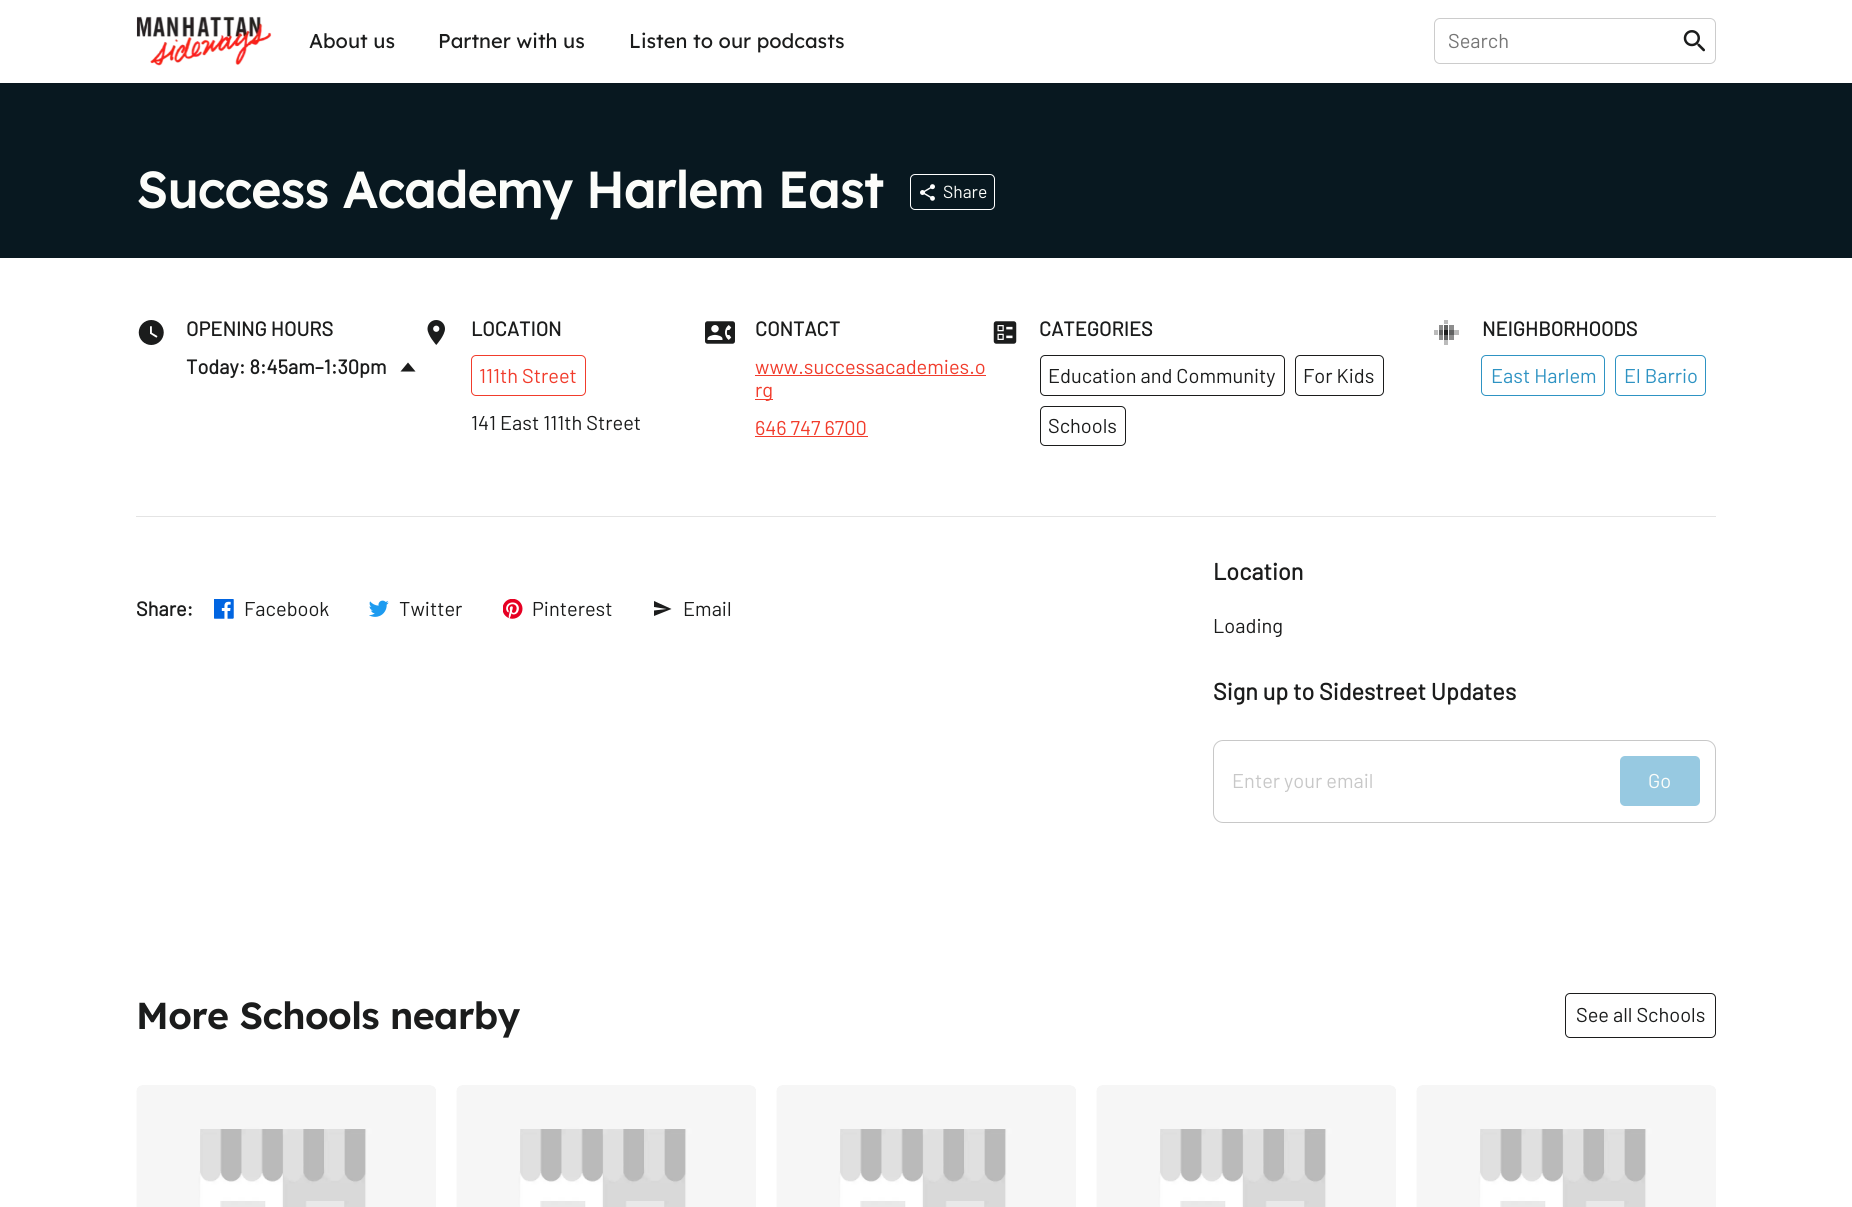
#include <cairo.h>
#include <math.h>
#include <stddef.h>


static void rgb(cairo_t *cr, int r, int g, int b)
{
	cairo_set_source_rgb(cr, r / 255.0, g / 255.0, b / 255.0);
}

static void face(cairo_t *cr, const char *family, double size, int italic, int bold)
{
	cairo_select_font_face(cr, family, italic ? CAIRO_FONT_SLANT_ITALIC : CAIRO_FONT_SLANT_NORMAL,
		bold ? CAIRO_FONT_WEIGHT_BOLD : CAIRO_FONT_WEIGHT_NORMAL);
	cairo_set_font_size(cr, size);
}

static void label(cairo_t *cr, double x, double y, const char *s)
{
	cairo_move_to(cr, x, y);
	cairo_show_text(cr, s);
}

static void tracked(cairo_t *cr, double x, double y, const char *s, double letter, double word)
{
	cairo_move_to(cr, x, y);
	while (*s) {
		char ch[5] = {0};
		int n = 0;
		do ch[n++] = *s++; while ((*s & 0xC0) == 0x80);
		cairo_show_text(cr, ch);
		cairo_rel_move_to(cr, letter + word * (*ch == ' '), 0);
	}
}

static void rect(cairo_t *cr, double x, double y, double w, double h)
{
	cairo_rectangle(cr, x, y, w, h);
	cairo_fill(cr);
}

static void rrect(cairo_t *cr, double x, double y, double w, double h, double r)
{
	cairo_new_sub_path(cr);
	cairo_arc(cr, x + w - r, y + h - r, r, 0, M_PI / 2);
	cairo_arc(cr, x + r, y + h - r, r, M_PI / 2, M_PI);
	cairo_arc(cr, x + r, y + r, r, M_PI, 1.5 * M_PI);
	cairo_arc(cr, x + w - r, y + r, r, 1.5 * M_PI, 2 * M_PI);
	cairo_close_path(cr);
}

static void soft_shadow(cairo_t *cr, double x, double y, double w, double h, double r, double blur, double alpha)
{
	cairo_push_group_with_content(cr, CAIRO_CONTENT_ALPHA);
	cairo_set_operator(cr, CAIRO_OPERATOR_SOURCE);
	for (int i = 15; i >= -15 && fmin(w, h) + blur * i / 3 > 0; i -= 2) {
		double e = blur * i / 6;
		cairo_set_source_rgba(cr, 0, 0, 0, alpha * erfc((i - 1) / 8.5) / 2);
		rrect(cr, x - e, y - e, w + 2 * e, h + 2 * e, fmax(0, fmin(r + e + blur * .6, fmin(w, h) / 2 + e)));
		cairo_fill(cr);
	}
	cairo_pattern_t *soft = cairo_pop_group(cr);
	cairo_mask(cr, soft);
	cairo_pattern_destroy(soft);
}

static void image(cairo_t *cr, const char *path, double x, double y, double w, double h)
{
	cairo_surface_t *image = cairo_image_surface_create_from_png(path);
	cairo_save(cr);
	cairo_set_source_surface(cr, image, x, y);
	cairo_rectangle(cr, x, y, w, h);
	cairo_fill(cr);
	cairo_restore(cr);
	cairo_surface_destroy(image);
}

static void draw(cairo_t *cr) {
	rgb(cr, 255, 255, 255);
	cairo_paint(cr);
	rgb(cr, 8, 24, 32);
	rect(cr, 0, 83, 1852, 175);
	rgb(cr, 0, 0, 0);
	soft_shadow(cr, 0, 0, 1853, 83, 0, 2.5, 0.1);
	rgb(cr, 255, 255, 255);
	rect(cr, 0, 0, 1852, 83);
	image(cr, "image0.png", 136, 16, 136, 50);
	face(cr, "Lexend", 20, 0, 0);
	rgb(cr, 27, 28, 28);
	label(cr, 309, 48, "About us");
	label(cr, 438, 48, "Partner with us");
	label(cr, 629, 48, "Listen to our podcasts");
	rrect(cr, 1434.5, 18.5, 281, 45, 5.5);
	rgb(cr, 204, 204, 204);
	cairo_set_line_width(cr, 1);
	cairo_stroke(cr);
	face(cr, "Barlow", 20, 0, 0);
	rgb(cr, 117, 117, 117);
	label(cr, 1448, 48, "Search");
	image(cr, "image1.png", 1683, 30, 22, 22);
	face(cr, "Lexend", 50, 0, 1);
	rgb(cr, 252, 253, 250);
	label(cr, 136, 208, "Success Academy Harlem East");
	rrect(cr, 910.5, 174.5, 84, 35, 4.5);
	rgb(cr, 255, 255, 255);
	cairo_stroke(cr);
	image(cr, "image2.png", 920, 184, 15, 17);
	face(cr, "Barlow", 17.5, 0, 0);
	rgb(cr, 252, 253, 250);
	label(cr, 943, 198, "Share");
	rgb(cr, 228, 228, 228);
	rect(cr, 136, 516, 1580, 1);
	image(cr, "image3.png", 138, 320, 26, 25);
	face(cr, "Barlow", 20, 0, 1);
	rgb(cr, 27, 28, 28);
	label(cr, 186, 336, "OPENING HOURS");
	label(cr, 186, 374, "Today: 8:45am–1:30pm");
	cairo_new_path(cr);
	cairo_move_to(cr, 408, 362.5);
	cairo_line_to(cr, 400.5, 371.5);
	cairo_line_to(cr, 415.5, 371.5);
	cairo_close_path(cr);
	cairo_fill(cr);
	image(cr, "image4.png", 427, 320, 18, 25);
	label(cr, 471, 336, "LOCATION");
	rrect(cr, 471.5, 355.5, 114, 40, 4.5);
	rgb(cr, 241, 60, 44);
	cairo_stroke(cr);
	face(cr, "Barlow", 20, 0, 0);
	label(cr, 479, 383, "111th Street");
	rgb(cr, 27, 28, 28);
	label(cr, 471, 430, "141 East 111th Street");
	image(cr, "image5.png", 705, 321, 30, 23);
	face(cr, "Barlow", 20, 0, 1);
	label(cr, 755, 336, "CONTACT");
	face(cr, "Barlow", 20, 0, 0);
	rgb(cr, 241, 60, 44);
	label(cr, 755, 374, "www.successacademies.o");
	rect(cr, 755, 375, 231, 1);
	rect(cr, 755, 399, 18, 1);
	label(cr, 755, 397, "rg");
	label(cr, 755, 435, "646 747 6700");
	rect(cr, 755, 436, 113, 1);
	image(cr, "image6.png", 993, 321, 24, 23);
	face(cr, "Barlow", 20, 0, 1);
	rgb(cr, 27, 28, 28);
	label(cr, 1039, 336, "CATEGORIES");
	rrect(cr, 1040.5, 355.5, 244, 40, 4.5);
	cairo_stroke(cr);
	face(cr, "Barlow", 20, 0, 0);
	label(cr, 1048, 383, "Education and Community");
	rrect(cr, 1295.5, 355.5, 88, 40, 4.5);
	cairo_stroke(cr);
	label(cr, 1303, 383, "For Kids");
	rrect(cr, 1040.5, 406.5, 85, 39, 4.5);
	cairo_stroke(cr);
	label(cr, 1048, 433, "Schools");
	image(cr, "image7.png", 1434, 320, 25, 25);
	face(cr, "Barlow", 20, 0, 1);
	label(cr, 1482, 336, "NEIGHBORHOODS");
	rrect(cr, 1481.5, 355.5, 123, 40, 4.5);
	rgb(cr, 46, 147, 195);
	cairo_stroke(cr);
	face(cr, "Barlow", 20, 0, 0);
	label(cr, 1491, 383, "East Harlem");
	rrect(cr, 1615.5, 355.5, 90, 40, 4.5);
	cairo_stroke(cr);
	label(cr, 1624, 383, "El Barrio");
	face(cr, "Barlow", 20, 0, 1);
	rgb(cr, 27, 28, 28);
	label(cr, 136, 616, "Share:");
	image(cr, "image8.png", 214, 599, 20, 20);
	face(cr, "Barlow", 20, 0, 0);
	label(cr, 244, 616, "Facebook");
	image(cr, "image9.png", 369, 600, 20, 17);
	label(cr, 399, 616, "Twitter");
	image(cr, "image10.png", 503, 599, 20, 20);
	label(cr, 532, 616, "Pinterest");
	cairo_new_path(cr);
	cairo_move_to(cr, 654, 616);
	cairo_line_to(cr, 671.5, 609);
	cairo_line_to(cr, 654, 601);
	cairo_line_to(cr, 654, 607);
	cairo_line_to(cr, 666.5, 609);
	cairo_line_to(cr, 654, 610.5);
	cairo_close_path(cr);
	cairo_fill(cr);
	label(cr, 683, 616, "Email");
	face(cr, "Barlow", 23.5, 0, 1);
	label(cr, 1213, 580, "Location");
	face(cr, "Barlow", 20, 0, 0);
	label(cr, 1213, 633, "Loading");
	face(cr, "Barlow", 23.5, 0, 1);
	label(cr, 1213, 700, "Sign up to Sidestreet Updates");
	rrect(cr, 1213.5, 740.5, 502, 82, 9.5);
	rgb(cr, 200, 200, 200);
	cairo_stroke(cr);
	face(cr, "Barlow", 20, 0, 0);
	label(cr, 1232, 788, "Enter your email");
	rgb(cr, 151, 201, 225);
	rrect(cr, 1620, 756, 80, 50, 5);
	cairo_fill(cr);
	rgb(cr, 252, 253, 250);
	label(cr, 1648, 788, "Go");
	face(cr, "Lexend SemiBold", 37.5, 0, 0);
	rgb(cr, 27, 28, 28);
	tracked(cr, 136, 1029, "More Schools nearby", -0.6, 0);
	rrect(cr, 1565.5, 993.5, 150, 44, 4.5);
	cairo_stroke(cr);
	face(cr, "Barlow", 20, 0, 0);
	label(cr, 1576, 1022, "See all Schools");
	image(cr, "image11.png", 136, 1085, 300, 122);
	image(cr, "image11.png", 456, 1085, 300, 122);
	image(cr, "image11.png", 776, 1085, 300, 122);
	image(cr, "image11.png", 1096, 1085, 300, 122);
	image(cr, "image11.png", 1416, 1085, 300, 122);
}

int main(void) {
	cairo_surface_t *surface = cairo_image_surface_create(CAIRO_FORMAT_RGB24, 1852, 1207);
	cairo_t *cr = cairo_create(surface);
	cairo_font_options_t *options = cairo_font_options_create();
	cairo_font_options_set_hint_metrics(options, CAIRO_HINT_METRICS_OFF);
	cairo_font_options_set_hint_style(options, CAIRO_HINT_STYLE_NONE);
	cairo_set_font_options(cr, options);
	cairo_set_miter_limit(cr, 4);
	draw(cr);
	cairo_surface_write_to_png(surface, "render.png");
	cairo_font_options_destroy(options);
	cairo_destroy(cr);
	cairo_surface_destroy(surface);
	return 0;
}
